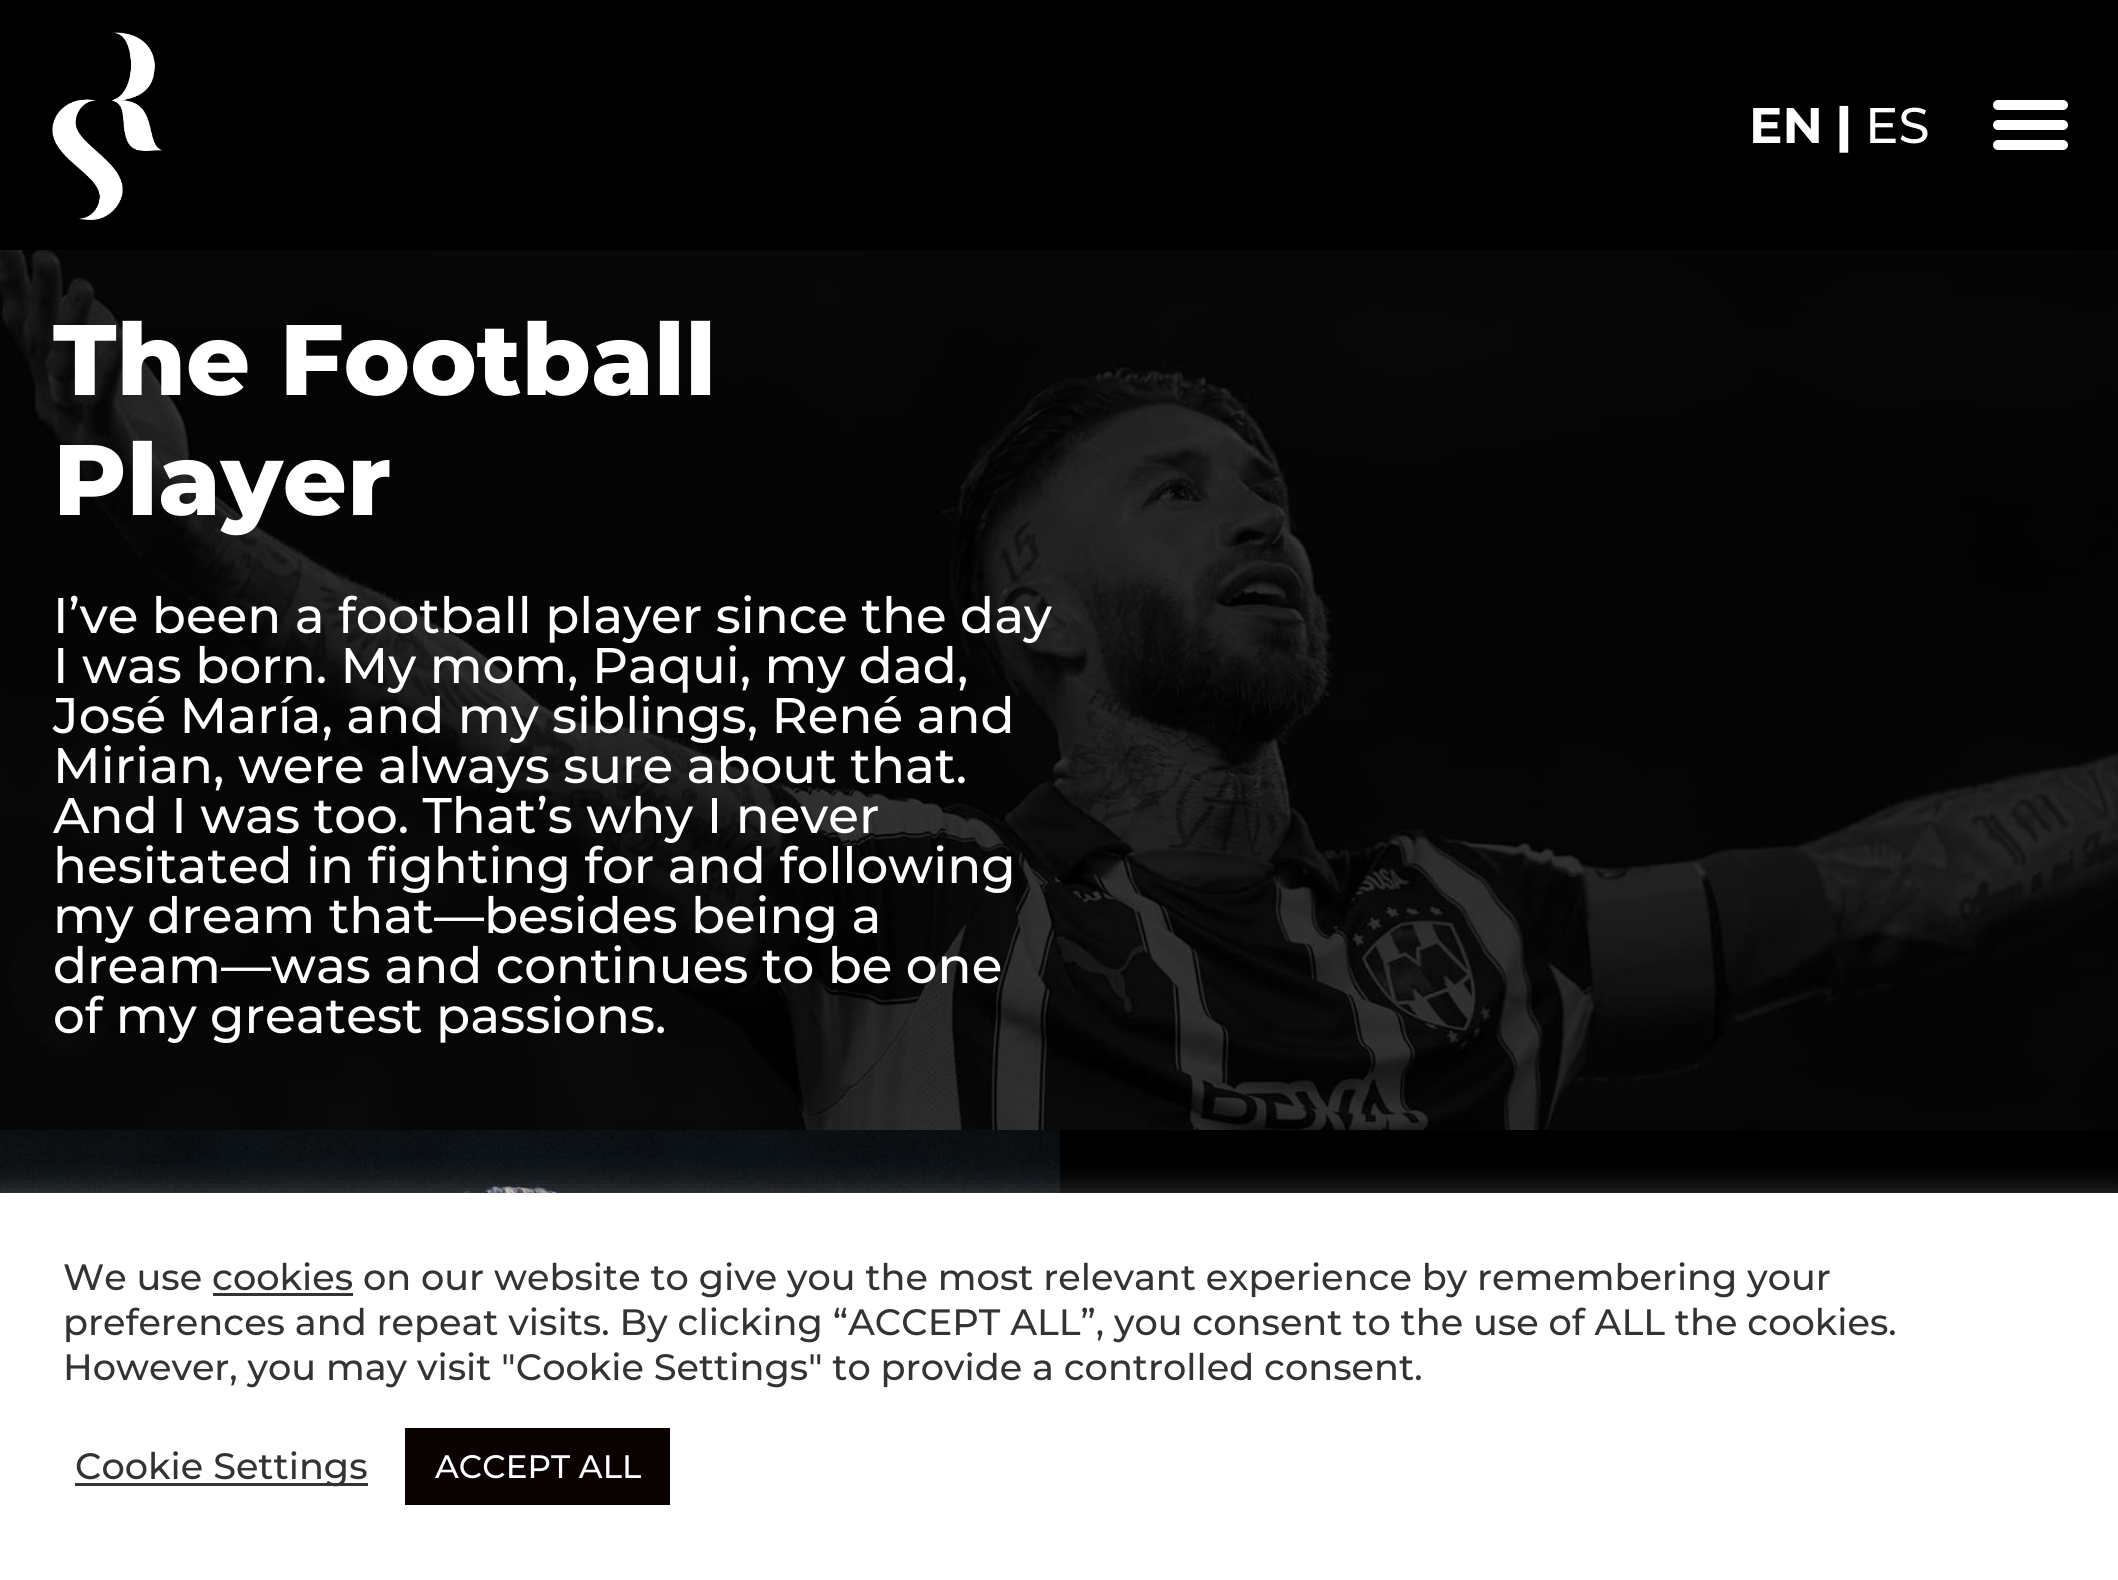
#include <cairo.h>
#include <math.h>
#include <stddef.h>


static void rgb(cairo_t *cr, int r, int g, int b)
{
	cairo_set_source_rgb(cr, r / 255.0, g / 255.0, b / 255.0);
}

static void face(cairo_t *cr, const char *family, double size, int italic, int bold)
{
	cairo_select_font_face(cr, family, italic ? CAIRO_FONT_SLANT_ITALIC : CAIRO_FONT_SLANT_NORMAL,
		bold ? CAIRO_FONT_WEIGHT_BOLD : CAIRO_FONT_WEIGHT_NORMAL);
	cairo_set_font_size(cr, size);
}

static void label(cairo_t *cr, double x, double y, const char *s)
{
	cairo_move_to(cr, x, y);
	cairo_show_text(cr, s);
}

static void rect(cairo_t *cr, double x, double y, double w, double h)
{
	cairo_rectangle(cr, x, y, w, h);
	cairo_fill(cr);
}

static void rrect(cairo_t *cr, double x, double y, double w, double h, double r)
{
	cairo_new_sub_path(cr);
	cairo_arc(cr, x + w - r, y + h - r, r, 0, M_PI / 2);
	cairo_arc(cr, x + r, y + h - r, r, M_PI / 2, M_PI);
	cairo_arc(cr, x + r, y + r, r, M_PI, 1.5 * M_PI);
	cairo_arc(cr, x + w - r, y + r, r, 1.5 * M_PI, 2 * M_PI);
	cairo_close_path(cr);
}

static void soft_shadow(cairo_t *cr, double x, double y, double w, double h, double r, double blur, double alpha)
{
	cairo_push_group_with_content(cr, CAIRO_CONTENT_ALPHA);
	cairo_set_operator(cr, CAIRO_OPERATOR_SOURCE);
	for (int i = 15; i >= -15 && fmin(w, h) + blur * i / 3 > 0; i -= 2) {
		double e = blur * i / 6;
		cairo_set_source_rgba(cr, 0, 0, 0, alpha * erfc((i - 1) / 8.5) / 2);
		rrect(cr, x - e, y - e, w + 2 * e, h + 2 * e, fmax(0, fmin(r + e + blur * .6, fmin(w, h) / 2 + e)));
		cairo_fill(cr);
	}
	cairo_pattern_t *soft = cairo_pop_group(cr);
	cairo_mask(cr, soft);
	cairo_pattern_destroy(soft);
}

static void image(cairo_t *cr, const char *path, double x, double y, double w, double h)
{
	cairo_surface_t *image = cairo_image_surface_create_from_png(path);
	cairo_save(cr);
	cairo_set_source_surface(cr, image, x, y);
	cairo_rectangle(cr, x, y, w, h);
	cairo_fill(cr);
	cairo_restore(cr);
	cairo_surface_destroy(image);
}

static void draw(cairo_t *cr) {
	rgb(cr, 0, 0, 0);
	cairo_paint(cr);
	image(cr, "image0.png", 52, 32, 111, 188);
	face(cr, "Montserrat", 50, 0, 1);
	rgb(cr, 255, 255, 255);
	label(cr, 1749, 143, "EN");
	face(cr, "Montserrat ExtraBold", 50, 0, 0);
	label(cr, 1836, 143, "|");
	face(cr, "Montserrat Medium", 50, 0, 0);
	label(cr, 1865, 143, "ES");
	rrect(cr, 1993, 100, 75, 10, 5);
	cairo_fill(cr);
	rrect(cr, 1993, 120, 75, 10, 5);
	cairo_fill(cr);
	rrect(cr, 1993, 140, 75, 10, 5);
	cairo_fill(cr);
	image(cr, "image1.png", 0, 250, 2118, 880);
	face(cr, "Montserrat ExtraBold", 100, 0, 0);
	label(cr, 53, 395, "The Football");
	label(cr, 53, 515, "Player");
	face(cr, "Montserrat Medium", 50, 0, 0);
	label(cr, 53, 633, "I’ve been a football player since the day");
	label(cr, 53, 683, "I was born. My mom, Paqui, my dad,");
	label(cr, 53, 733, "José María, and my siblings, René and");
	label(cr, 53, 783, "Mirian, were always sure about that.");
	label(cr, 53, 833, "And I was too. That’s why I never");
	label(cr, 53, 883, "hesitated in fighting for and following");
	label(cr, 53, 933, "my dream that—besides being a");
	label(cr, 53, 983, "dream—was and continues to be one");
	label(cr, 53, 1033, "of my greatest passions.");
	image(cr, "image2.png", 0, 1130, 1060, 63);
	rgb(cr, 172, 171, 171);
	soft_shadow(cr, 0, 1190, 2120, 388, 0, 12.5, 0.3);
	rgb(cr, 255, 255, 255);
	rect(cr, 0, 1193, 2118, 387);
	face(cr, "Montserrat Medium", 36.65, 0, 0);
	rgb(cr, 51, 51, 51);
	label(cr, 63, 1290, "We use cookies on our website to give you the most relevant experience by remembering your");
	rect(cr, 213, 1293, 140, 3);
	label(cr, 63, 1335, "preferences and repeat visits. By clicking “ACCEPT ALL”, you consent to the use of ALL the cookies.");
	label(cr, 63, 1380, "However, you may visit \"Cookie Settings\" to provide a controlled consent.");
	rect(cr, 75, 1483, 293, 3);
	label(cr, 75, 1479, "Cookie Settings");
	rgb(cr, 10, 2, 2);
	rect(cr, 405, 1428, 265, 77);
	face(cr, "Montserrat Medium", 32.5, 0, 0);
	rgb(cr, 255, 255, 255);
	label(cr, 435, 1478, "ACCEPT ALL");
}

int main(void) {
	cairo_surface_t *surface = cairo_image_surface_create(CAIRO_FORMAT_RGB24, 2118, 1580);
	cairo_t *cr = cairo_create(surface);
	cairo_font_options_t *options = cairo_font_options_create();
	cairo_font_options_set_hint_metrics(options, CAIRO_HINT_METRICS_OFF);
	cairo_font_options_set_hint_style(options, CAIRO_HINT_STYLE_NONE);
	cairo_set_font_options(cr, options);
	cairo_set_miter_limit(cr, 4);
	draw(cr);
	cairo_surface_write_to_png(surface, "render.png");
	cairo_font_options_destroy(options);
	cairo_destroy(cr);
	cairo_surface_destroy(surface);
	return 0;
}
